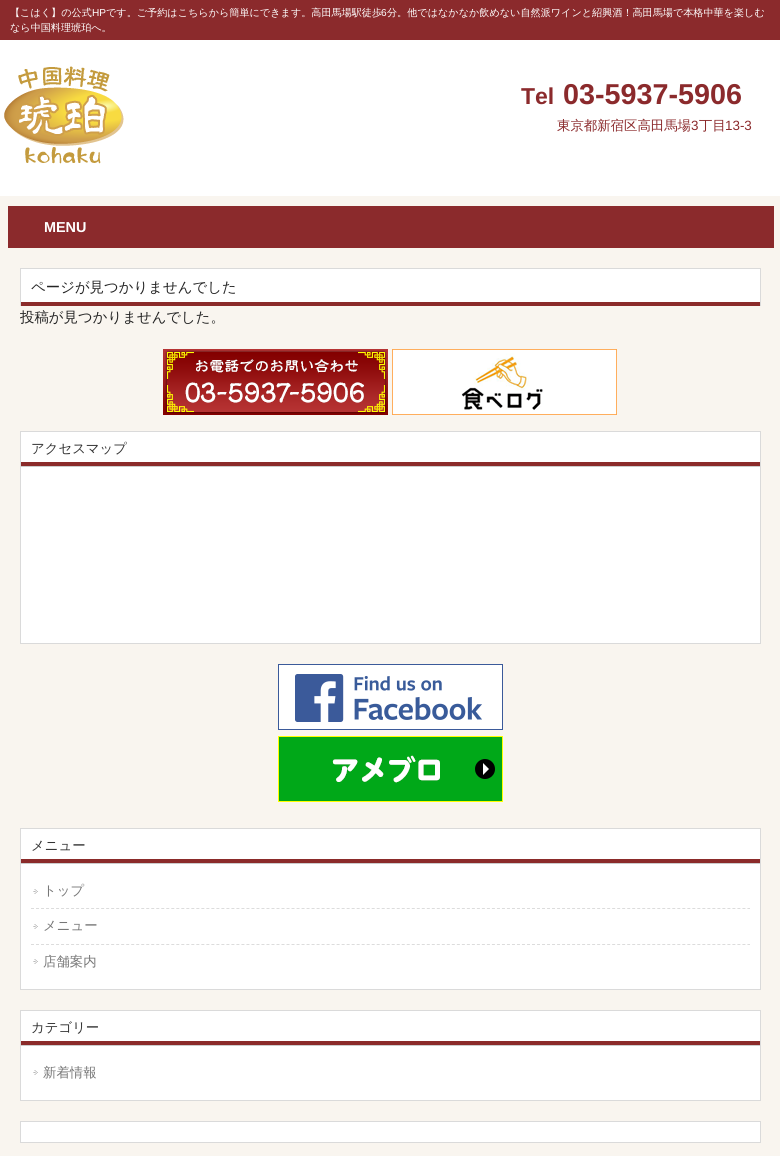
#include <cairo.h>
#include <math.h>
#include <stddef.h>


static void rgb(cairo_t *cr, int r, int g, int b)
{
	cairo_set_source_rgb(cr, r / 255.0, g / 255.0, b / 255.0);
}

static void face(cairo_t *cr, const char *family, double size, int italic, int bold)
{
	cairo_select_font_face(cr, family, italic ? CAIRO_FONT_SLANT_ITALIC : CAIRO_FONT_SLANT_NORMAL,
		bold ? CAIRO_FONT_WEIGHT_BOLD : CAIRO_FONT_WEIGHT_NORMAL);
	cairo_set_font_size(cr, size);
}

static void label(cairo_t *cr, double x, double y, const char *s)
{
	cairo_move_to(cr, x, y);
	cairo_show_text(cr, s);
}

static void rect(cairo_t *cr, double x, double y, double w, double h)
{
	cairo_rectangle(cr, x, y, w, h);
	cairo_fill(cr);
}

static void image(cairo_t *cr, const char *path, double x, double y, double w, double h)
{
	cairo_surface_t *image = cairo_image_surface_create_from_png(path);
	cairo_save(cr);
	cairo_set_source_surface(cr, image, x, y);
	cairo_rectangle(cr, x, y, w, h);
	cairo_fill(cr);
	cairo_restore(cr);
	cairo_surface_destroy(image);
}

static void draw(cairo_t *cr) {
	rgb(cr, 249, 245, 239);
	cairo_paint(cr);
	rgb(cr, 255, 255, 255);
	rect(cr, 0, 40, 780, 156);
	rgb(cr, 139, 42, 44);
	rect(cr, 0, 0, 780, 40);
	face(cr, "WenQuanYi Zen Hei Medium", 10.1, 0, 0);
	rgb(cr, 255, 255, 255);
	label(cr, 10, 16, "【こはく】の公式");
	face(cr, "Liberation Sans", 10.1, 0, 0);
	label(cr, 92, 16, "HP");
	face(cr, "WenQuanYi Zen Hei Medium", 10.1, 0, 0);
	label(cr, 106, 16, "です。ご予約はこちらから簡単にできます。高田馬場駅徒歩");
	face(cr, "Liberation Sans", 10.1, 0, 0);
	label(cr, 381, 16, "6");
	face(cr, "WenQuanYi Zen Hei Medium", 10.1, 0, 0);
	label(cr, 387, 16, "分。他ではなかなか飲めない自然派ワインと紹興酒！高田馬場で本格中華を楽しむ");
	label(cr, 10, 31, "なら中国料理琥珀へ。");
	image(cr, "image0.png", 4, 66, 120, 98);
	face(cr, "Liberation Sans", 23, 0, 1);
	rgb(cr, 139, 42, 44);
	label(cr, 521, 104, "Tel");
	face(cr, "Liberation Sans", 28.75, 0, 1);
	label(cr, 563, 104, "03-5937-5906");
	face(cr, "WenQuanYi Zen Hei Medium", 13.4, 0, 0);
	label(cr, 557, 130, "東京都新宿区高田馬場");
	face(cr, "Liberation Sans", 13.4, 0, 0);
	label(cr, 691, 130, "3");
	face(cr, "WenQuanYi Zen Hei Medium", 13.4, 0, 0);
	label(cr, 699, 130, "丁目");
	face(cr, "Liberation Sans", 13.4, 0, 0);
	label(cr, 725, 130, "13-3");
	rect(cr, 8, 206, 766, 42);
	face(cr, "Liberation Sans", 14.4, 0, 1);
	rgb(cr, 255, 255, 255);
	label(cr, 44, 232, "MENU");
	rect(cr, 21, 269, 739, 33);
	rgb(cr, 139, 43, 42);
	rect(cr, 20, 302, 741, 4);
	rgb(cr, 218, 218, 218);
	rect(cr, 20, 268, 741, 1);
	rect(cr, 760, 268, 1, 38);
	rect(cr, 20, 268, 1, 38);
	face(cr, "WenQuanYi Zen Hei Medium", 14.4, 0, 0);
	rgb(cr, 37, 37, 37);
	label(cr, 31, 292, "ページが見つかりませんでした");
	label(cr, 20, 322, "投稿が見つかりませんでした。");
	image(cr, "image1.png", 163, 349, 225, 66);
	image(cr, "image2.png", 392, 349, 225, 66);
	rgb(cr, 255, 255, 255);
	cairo_rectangle(cr, 20.5, 431.5, 740, 212);
	cairo_fill_preserve(cr);
	rgb(cr, 218, 218, 218);
	cairo_set_line_width(cr, 1);
	cairo_stroke(cr);
	rgb(cr, 139, 43, 42);
	rect(cr, 21, 462, 739, 4);
	rgb(cr, 204, 204, 204);
	rect(cr, 21, 466, 739, 1);
	face(cr, "WenQuanYi Zen Hei Medium", 13.4, 0, 0);
	rgb(cr, 51, 51, 51);
	label(cr, 31, 453, "アクセスマップ");
	image(cr, "image3.png", 278, 664, 225, 66);
	image(cr, "image4.png", 278, 736, 225, 66);
	rgb(cr, 255, 255, 255);
	cairo_rectangle(cr, 20.5, 828.5, 740, 161);
	cairo_fill_preserve(cr);
	rgb(cr, 218, 218, 218);
	cairo_stroke(cr);
	rgb(cr, 139, 43, 42);
	rect(cr, 21, 859, 739, 4);
	rgb(cr, 204, 204, 204);
	rect(cr, 21, 863, 739, 1);
	rgb(cr, 51, 51, 51);
	label(cr, 31, 850, "メニュー");
	image(cr, "image5.png", 33, 889, 5, 5);
	cairo_new_path(cr);
	cairo_move_to(cr, 31, 908.5);
	cairo_line_to(cr, 750, 908.5);
	rgb(cr, 220, 220, 220);
	cairo_set_dash(cr, (double[]){3, 2.01}, 2, 0);
	cairo_stroke(cr);
	rgb(cr, 119, 119, 119);
	label(cr, 43, 895, "トップ");
	image(cr, "image5.png", 33, 924, 5, 5);
	cairo_new_path(cr);
	cairo_move_to(cr, 31, 944.5);
	cairo_line_to(cr, 750, 944.5);
	rgb(cr, 220, 220, 220);
	cairo_stroke(cr);
	rgb(cr, 119, 119, 119);
	label(cr, 43, 930, "メニュー");
	image(cr, "image5.png", 33, 959, 5, 5);
	label(cr, 43, 966, "店舗案内");
	rgb(cr, 255, 255, 255);
	cairo_rectangle(cr, 20.5, 1010.5, 740, 90);
	cairo_fill_preserve(cr);
	rgb(cr, 218, 218, 218);
	cairo_set_dash(cr, NULL, 0, 0);
	cairo_stroke(cr);
	rgb(cr, 139, 43, 42);
	rect(cr, 21, 1041, 739, 4);
	rgb(cr, 204, 204, 204);
	rect(cr, 21, 1045, 739, 1);
	rgb(cr, 51, 51, 51);
	label(cr, 31, 1032, "カテゴリー");
	image(cr, "image5.png", 33, 1070, 5, 5);
	rgb(cr, 119, 119, 119);
	label(cr, 43, 1077, "新着情報");
	rgb(cr, 255, 255, 255);
	cairo_rectangle(cr, 20.5, 1121.5, 740, 21);
	cairo_fill_preserve(cr);
	rgb(cr, 218, 218, 218);
	cairo_stroke(cr);
}

int main(void) {
	cairo_surface_t *surface = cairo_image_surface_create(CAIRO_FORMAT_RGB24, 780, 1156);
	cairo_t *cr = cairo_create(surface);
	cairo_font_options_t *options = cairo_font_options_create();
	cairo_font_options_set_hint_metrics(options, CAIRO_HINT_METRICS_OFF);
	cairo_font_options_set_hint_style(options, CAIRO_HINT_STYLE_NONE);
	cairo_set_font_options(cr, options);
	cairo_set_miter_limit(cr, 4);
	draw(cr);
	cairo_surface_write_to_png(surface, "render.png");
	cairo_font_options_destroy(options);
	cairo_destroy(cr);
	cairo_surface_destroy(surface);
	return 0;
}
